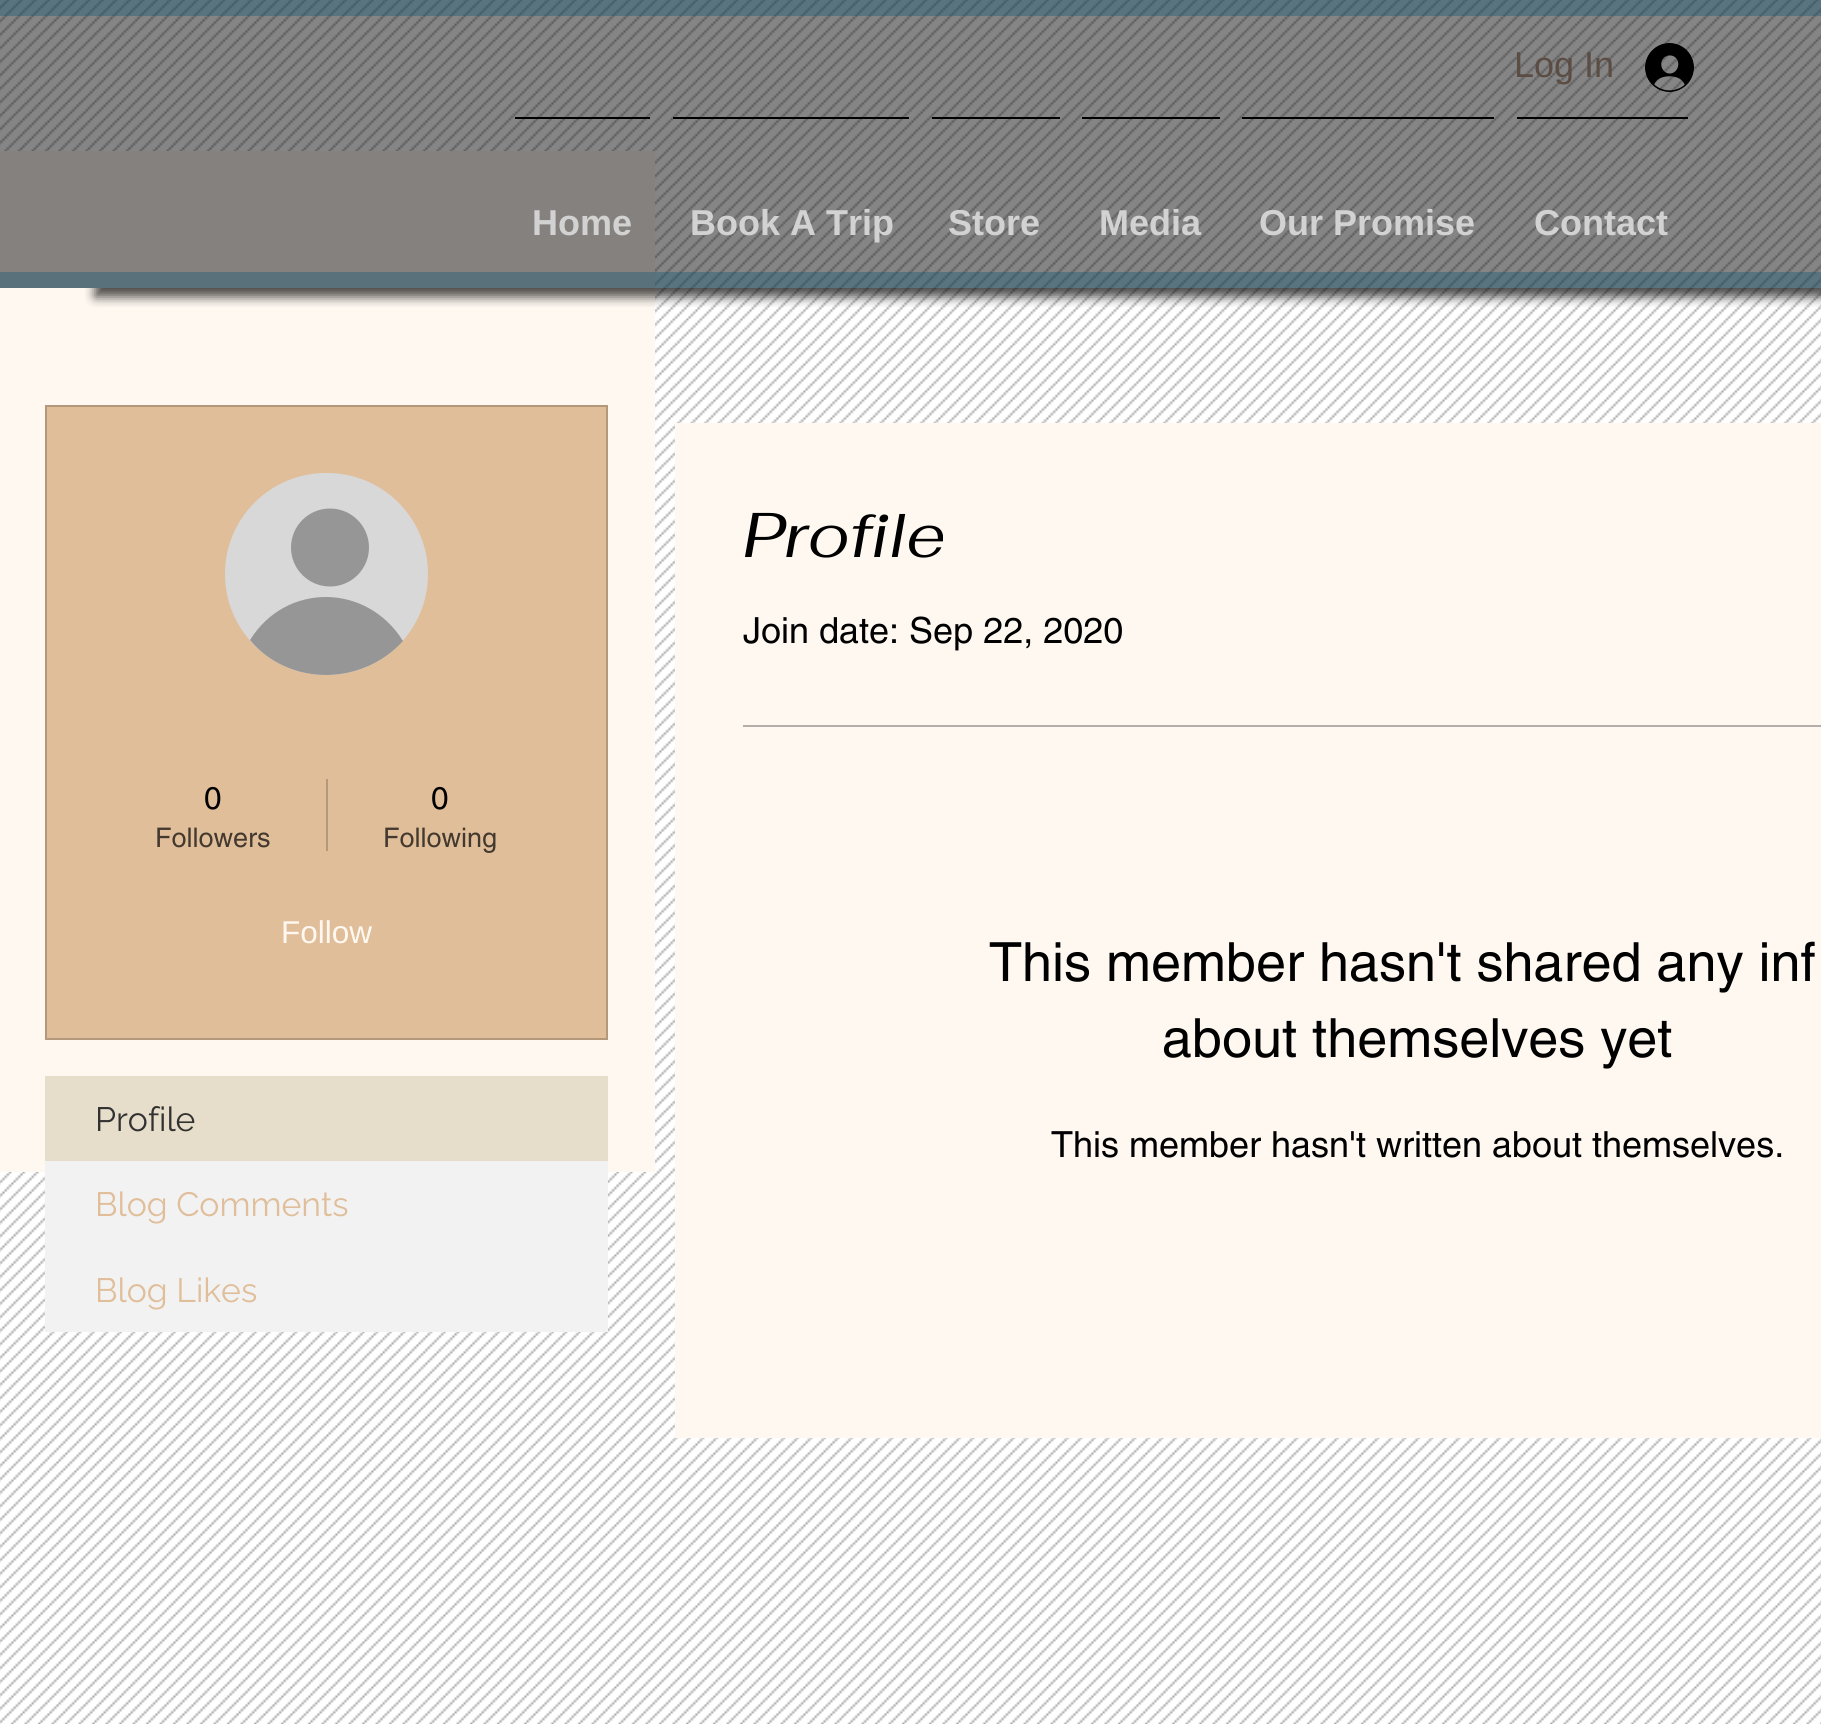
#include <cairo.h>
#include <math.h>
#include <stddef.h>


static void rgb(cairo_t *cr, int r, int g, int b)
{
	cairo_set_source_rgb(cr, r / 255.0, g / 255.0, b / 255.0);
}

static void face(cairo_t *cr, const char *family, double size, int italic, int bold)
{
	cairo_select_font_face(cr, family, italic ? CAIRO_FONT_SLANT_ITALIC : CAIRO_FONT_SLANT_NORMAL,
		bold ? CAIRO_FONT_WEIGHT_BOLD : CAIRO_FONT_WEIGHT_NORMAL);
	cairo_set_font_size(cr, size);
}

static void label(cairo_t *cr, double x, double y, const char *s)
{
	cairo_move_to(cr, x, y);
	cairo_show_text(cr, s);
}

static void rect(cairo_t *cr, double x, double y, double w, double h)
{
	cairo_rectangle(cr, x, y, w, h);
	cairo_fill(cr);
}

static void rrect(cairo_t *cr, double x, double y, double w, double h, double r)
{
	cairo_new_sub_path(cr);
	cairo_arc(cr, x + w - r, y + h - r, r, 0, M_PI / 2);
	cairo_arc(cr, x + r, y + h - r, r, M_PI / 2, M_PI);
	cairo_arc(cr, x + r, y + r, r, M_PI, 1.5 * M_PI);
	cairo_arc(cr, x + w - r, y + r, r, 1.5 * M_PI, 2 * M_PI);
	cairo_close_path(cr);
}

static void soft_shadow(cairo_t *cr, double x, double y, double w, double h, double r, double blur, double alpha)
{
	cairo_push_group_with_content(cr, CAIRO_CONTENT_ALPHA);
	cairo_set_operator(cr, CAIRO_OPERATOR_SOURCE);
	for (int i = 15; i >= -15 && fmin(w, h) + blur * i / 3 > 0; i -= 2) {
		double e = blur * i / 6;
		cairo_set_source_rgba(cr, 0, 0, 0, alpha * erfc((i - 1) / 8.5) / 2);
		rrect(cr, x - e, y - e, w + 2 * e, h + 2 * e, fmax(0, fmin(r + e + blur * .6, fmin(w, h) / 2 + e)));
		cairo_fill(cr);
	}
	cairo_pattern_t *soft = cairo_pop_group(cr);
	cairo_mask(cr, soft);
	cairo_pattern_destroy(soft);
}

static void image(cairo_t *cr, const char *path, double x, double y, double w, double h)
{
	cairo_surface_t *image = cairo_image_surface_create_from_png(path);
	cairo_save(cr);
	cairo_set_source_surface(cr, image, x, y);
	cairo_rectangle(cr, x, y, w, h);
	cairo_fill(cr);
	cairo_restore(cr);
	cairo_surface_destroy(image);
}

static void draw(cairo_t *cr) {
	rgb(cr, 255, 255, 255);
	cairo_paint(cr);
	image(cr, "image0.png", 0, 0, 1821, 1724);
	rgb(cr, 255, 248, 241);
	rect(cr, 0, 151, 655, 1021);
	cairo_save(cr);
	cairo_rectangle(cr, 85, 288, 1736, 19);
	cairo_clip(cr);
	rgb(cr, 0, 0, 0);
	soft_shadow(cr, 95, 9, 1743, 288, 0, 5.5, 0.7);
	cairo_restore(cr);
	cairo_set_source_rgba(cr, 0, 0, 0, 0.48);
	rect(cr, 0, 0, 1821, 288);
	cairo_set_source_rgba(cr, 0.102, 0.353, 0.463, 0.41);
	rect(cr, 0, 0, 1821, 16);
	rect(cr, 0, 272, 1821, 16);
	face(cr, "Liberation Sans", 36, 0, 0);
	rgb(cr, 91, 77, 67);
	label(cr, 1514, 77, "Log In");
	image(cr, "image1.png", 1645, 43, 49, 49);
	rgb(cr, 0, 0, 0);
	rect(cr, 515, 117, 135, 2);
	face(cr, "Liberation Sans", 36, 0, 1);
	rgb(cr, 210, 210, 210);
	label(cr, 532, 235, "Home");
	rgb(cr, 0, 0, 0);
	rect(cr, 673, 117, 236, 2);
	rgb(cr, 210, 210, 210);
	label(cr, 690, 235, "Book A Trip");
	rgb(cr, 0, 0, 0);
	rect(cr, 932, 117, 128, 2);
	rgb(cr, 210, 210, 210);
	label(cr, 948, 235, "Store");
	rgb(cr, 0, 0, 0);
	rect(cr, 1082, 117, 138, 2);
	rgb(cr, 210, 210, 210);
	label(cr, 1099, 235, "Media");
	rgb(cr, 0, 0, 0);
	rect(cr, 1242, 117, 252, 2);
	rgb(cr, 210, 210, 210);
	label(cr, 1259, 235, "Our Promise");
	rgb(cr, 0, 0, 0);
	rect(cr, 1517, 117, 171, 2);
	rgb(cr, 210, 210, 210);
	label(cr, 1534, 235, "Contact");
	rgb(cr, 224, 190, 154);
	cairo_rectangle(cr, 46, 406, 561, 633);
	cairo_fill_preserve(cr);
	rgb(cr, 179, 152, 123);
	cairo_stroke(cr);
	rgb(cr, 216, 216, 216);
	rrect(cr, 225, 473, 203, 202, 101);
	cairo_fill(cr);
	rgb(cr, 150, 150, 150);
	cairo_arc(cr, 330, 547.5, 39, 0, 2 * M_PI);
	cairo_fill(cr);
	cairo_new_path(cr);
	cairo_move_to(cr, 326, 675);
	cairo_curve_to(cr, 355, 675, 383, 663, 403, 641);
	cairo_curve_to(cr, 367, 583, 286, 582, 250, 640);
	cairo_curve_to(cr, 268, 662, 296, 675, 326, 675);
	cairo_close_path(cr);
	cairo_fill(cr);
	face(cr, "helvetica", 31.5, 0, 0);
	rgb(cr, 0, 0, 0);
	label(cr, 204, 809, "0");
	face(cr, "helvetica", 27, 0, 0);
	rgb(cr, 67, 57, 46);
	label(cr, 155, 847, "Followers");
	rgb(cr, 179, 152, 123);
	rect(cr, 326, 779, 2, 72);
	face(cr, "helvetica", 31.5, 0, 0);
	rgb(cr, 0, 0, 0);
	label(cr, 431, 809, "0");
	face(cr, "helvetica", 27, 0, 0);
	rgb(cr, 67, 57, 46);
	label(cr, 383, 847, "Following");
	face(cr, "Liberation Sans", 31.5, 0, 0);
	rgb(cr, 255, 248, 241);
	label(cr, 281, 943, "Follow");
	rgb(cr, 230, 222, 202);
	rect(cr, 45, 1076, 563, 85);
	face(cr, "Raleway", 33.75, 0, 0);
	rgb(cr, 50, 50, 50);
	label(cr, 95, 1131, "Profile");
	rgb(cr, 242, 242, 242);
	rect(cr, 45, 1161, 563, 171);
	rgb(cr, 224, 190, 154);
	label(cr, 95, 1216, "Blog Comments");
	label(cr, 95, 1302, "Blog Likes");
	rgb(cr, 255, 248, 241);
	rect(cr, 675, 423, 1146, 1015);
	face(cr, "Fahkwang", 63, 1, 0);
	rgb(cr, 0, 0, 0);
	label(cr, 743, 557, "Profile");
	face(cr, "helvetica", 36, 0, 0);
	label(cr, 743, 643, "Join date: Sep 22, 2020");
	rgb(cr, 179, 174, 169);
	rect(cr, 743, 725, 1078, 2);
	face(cr, "helvetica", 54, 0, 0);
	rgb(cr, 0, 0, 0);
	label(cr, 989, 981, "This member hasn't shared any inf");
	label(cr, 1162, 1057, "about themselves yet");
	face(cr, "helvetica", 36, 0, 0);
	label(cr, 1051, 1157, "This member hasn't written about themselves.");
}

int main(void) {
	cairo_surface_t *surface = cairo_image_surface_create(CAIRO_FORMAT_RGB24, 1821, 1724);
	cairo_t *cr = cairo_create(surface);
	cairo_font_options_t *options = cairo_font_options_create();
	cairo_font_options_set_hint_metrics(options, CAIRO_HINT_METRICS_OFF);
	cairo_font_options_set_hint_style(options, CAIRO_HINT_STYLE_NONE);
	cairo_set_font_options(cr, options);
	cairo_set_miter_limit(cr, 4);
	draw(cr);
	cairo_surface_write_to_png(surface, "render.png");
	cairo_font_options_destroy(options);
	cairo_destroy(cr);
	cairo_surface_destroy(surface);
	return 0;
}
